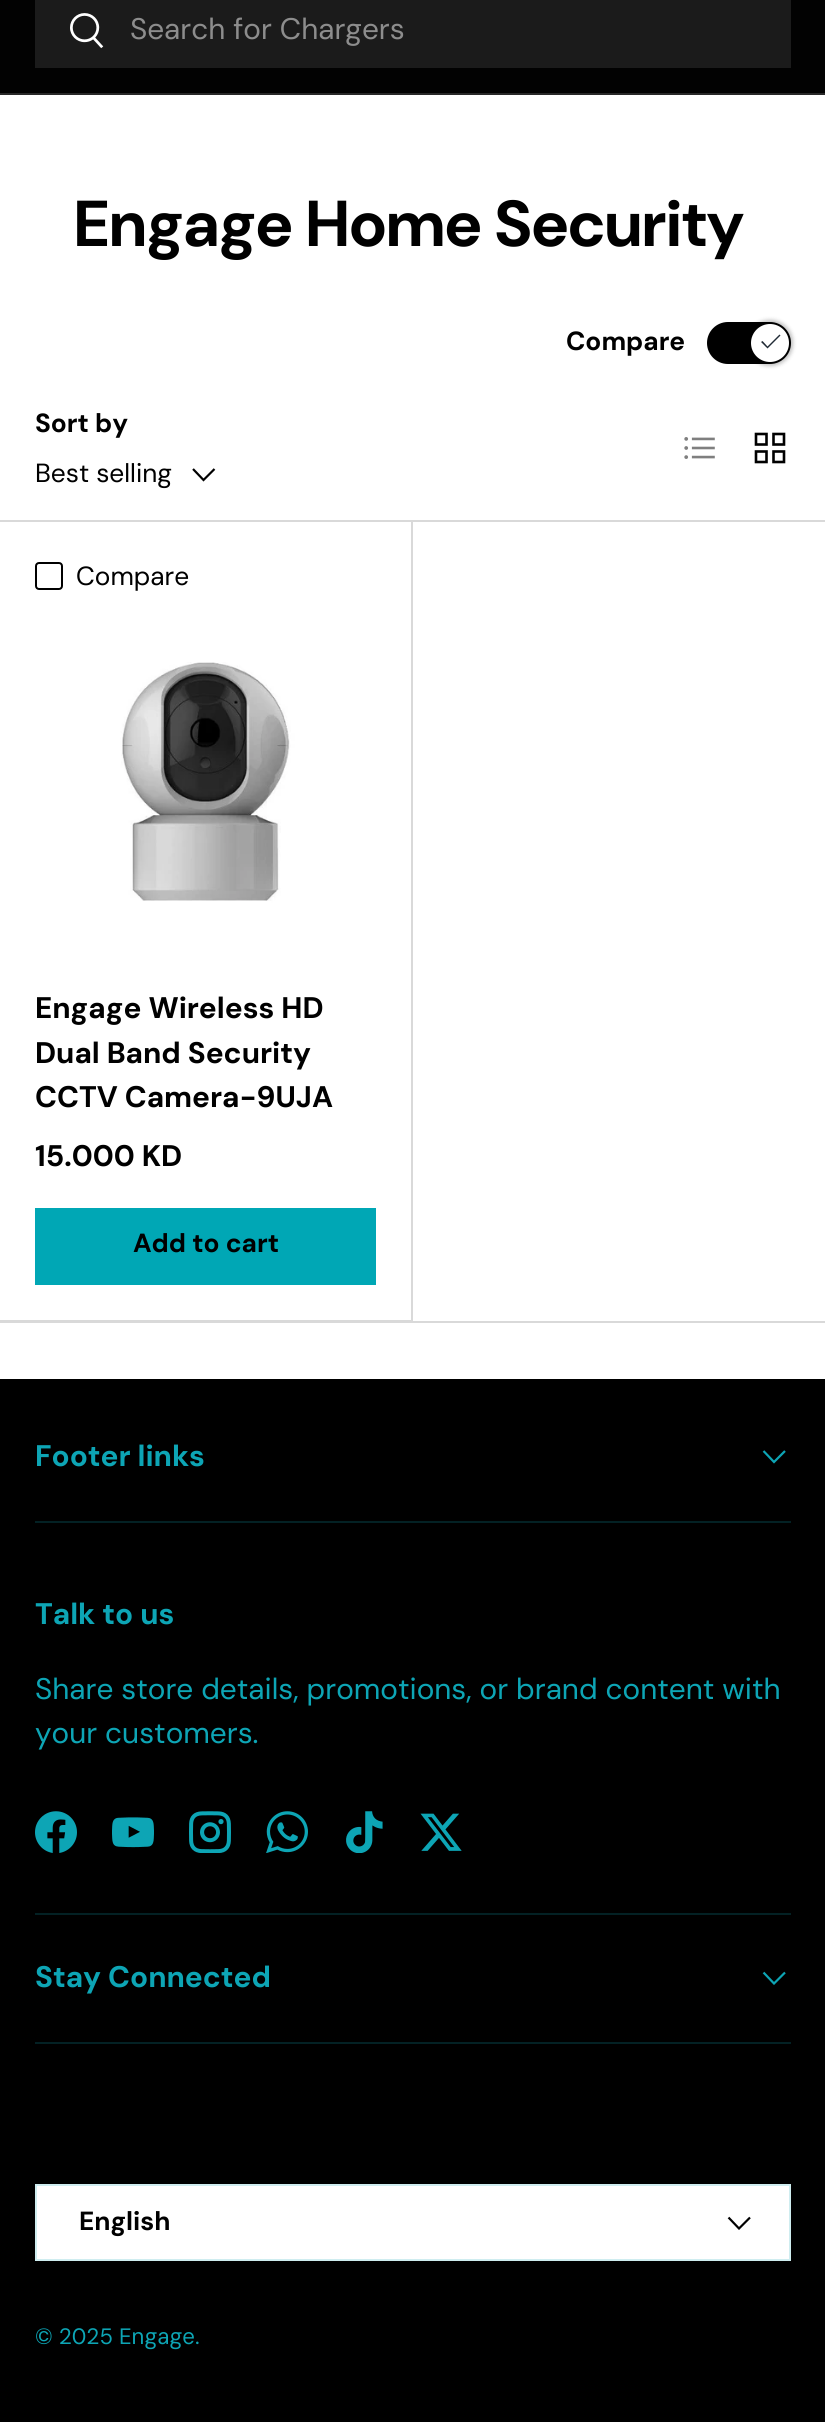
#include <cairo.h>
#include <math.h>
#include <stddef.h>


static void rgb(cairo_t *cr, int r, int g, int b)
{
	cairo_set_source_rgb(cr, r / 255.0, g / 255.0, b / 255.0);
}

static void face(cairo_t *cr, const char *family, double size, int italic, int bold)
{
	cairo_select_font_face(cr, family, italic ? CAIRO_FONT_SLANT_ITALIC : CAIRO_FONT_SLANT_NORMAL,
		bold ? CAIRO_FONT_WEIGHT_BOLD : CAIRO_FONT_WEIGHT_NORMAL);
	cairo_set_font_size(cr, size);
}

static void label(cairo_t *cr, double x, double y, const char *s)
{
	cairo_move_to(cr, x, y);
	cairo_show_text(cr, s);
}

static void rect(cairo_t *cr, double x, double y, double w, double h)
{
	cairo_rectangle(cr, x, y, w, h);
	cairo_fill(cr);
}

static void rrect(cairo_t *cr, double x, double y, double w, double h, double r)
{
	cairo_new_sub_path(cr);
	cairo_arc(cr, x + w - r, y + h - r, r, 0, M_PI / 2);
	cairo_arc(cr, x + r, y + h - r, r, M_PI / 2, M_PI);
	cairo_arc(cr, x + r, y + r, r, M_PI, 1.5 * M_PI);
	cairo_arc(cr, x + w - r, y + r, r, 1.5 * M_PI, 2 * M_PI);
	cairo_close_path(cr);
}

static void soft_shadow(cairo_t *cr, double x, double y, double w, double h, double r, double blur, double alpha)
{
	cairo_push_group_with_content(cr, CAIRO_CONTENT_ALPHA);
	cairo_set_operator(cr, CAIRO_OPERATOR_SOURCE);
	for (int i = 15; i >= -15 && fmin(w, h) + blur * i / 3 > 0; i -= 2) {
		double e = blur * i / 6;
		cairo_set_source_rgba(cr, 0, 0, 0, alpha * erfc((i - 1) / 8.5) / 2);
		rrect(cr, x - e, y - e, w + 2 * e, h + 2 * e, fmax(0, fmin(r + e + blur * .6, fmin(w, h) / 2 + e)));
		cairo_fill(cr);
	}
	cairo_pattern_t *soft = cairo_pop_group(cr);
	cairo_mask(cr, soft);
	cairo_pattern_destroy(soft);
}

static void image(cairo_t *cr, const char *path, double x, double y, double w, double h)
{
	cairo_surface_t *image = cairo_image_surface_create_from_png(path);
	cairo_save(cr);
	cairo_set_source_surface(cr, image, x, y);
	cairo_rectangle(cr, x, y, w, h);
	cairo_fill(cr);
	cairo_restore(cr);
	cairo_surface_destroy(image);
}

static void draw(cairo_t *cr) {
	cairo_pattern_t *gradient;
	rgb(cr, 255, 255, 255);
	cairo_paint(cr);
	rgb(cr, 2, 2, 2);
	rect(cr, 0, 0, 825, 93);
	rgb(cr, 40, 40, 40);
	rect(cr, 0, 93, 825, 2);
	rgb(cr, 27, 27, 27);
	rect(cr, 35, 0, 756, 68);
	image(cr, "image0.png", 70, 13, 34, 36);
	face(cr, "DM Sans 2", 29.75, 0, 0);
	rgb(cr, 141, 141, 141);
	label(cr, 130, 39, "Search for Chargers");
	face(cr, "DM Sans", 64.75, 0, 1);
	rgb(cr, 0, 0, 0);
	label(cr, 74, 246, "Engage Home Security");
	rrect(cr, 707, 322, 84, 42, 21);
	cairo_fill(cr);
	cairo_save(cr);
	cairo_set_fill_rule(cr, CAIRO_FILL_RULE_EVEN_ODD);
	cairo_new_path(cr);
	cairo_move_to(cr, 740, 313);
	cairo_line_to(cr, 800, 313);
	cairo_line_to(cr, 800, 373);
	cairo_line_to(cr, 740, 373);
	cairo_close_path(cr);
	cairo_move_to(cr, 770, 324);
	cairo_curve_to(cr, 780.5, 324, 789, 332.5, 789, 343);
	cairo_curve_to(cr, 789, 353.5, 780.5, 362, 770, 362);
	cairo_curve_to(cr, 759.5, 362, 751, 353.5, 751, 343);
	cairo_curve_to(cr, 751, 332.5, 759.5, 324, 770, 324);
	cairo_close_path(cr);
	cairo_clip(cr);
	rgb(cr, 0, 0, 0);
	soft_shadow(cr, 747, 320, 46, 46, 23, 2, 0.25);
	cairo_restore(cr);
	rgb(cr, 255, 255, 255);
	cairo_arc(cr, 770, 343, 19, 0, 2 * M_PI);
	cairo_fill(cr);
	rgb(cr, 33, 43, 54);
	cairo_set_fill_rule(cr, CAIRO_FILL_RULE_EVEN_ODD);
	cairo_new_path(cr);
	cairo_move_to(cr, 779.5, 334.5);
	cairo_line_to(cr, 780.5, 335.5);
	cairo_line_to(cr, 767.5, 348.5);
	cairo_line_to(cr, 761, 342);
	cairo_line_to(cr, 762.5, 341);
	cairo_line_to(cr, 767.5, 346.5);
	cairo_close_path(cr);
	cairo_fill(cr);
	face(cr, "DM Sans 2", 26.25, 0, 1);
	rgb(cr, 0, 0, 0);
	label(cr, 566, 350, "Compare");
	label(cr, 35, 432, "Sort by");
	face(cr, "DM Sans", 26.25, 0, 0);
	label(cr, 35, 482, "Best selling");
	cairo_new_path(cr);
	cairo_move_to(cr, 214.5, 469);
	cairo_line_to(cr, 203.5, 480);
	cairo_line_to(cr, 193, 469);
	cairo_set_line_width(cr, 2.2);
	cairo_stroke(cr);
	image(cr, "image1.png", 684, 437, 31, 22);
	image(cr, "image2.png", 754, 432, 32, 32);
	rgb(cr, 217, 217, 217);
	rect(cr, 0, 520, 825, 2);
	rect(cr, 0, 1321, 825, 2);
	cairo_set_fill_rule(cr, CAIRO_FILL_RULE_WINDING);
	cairo_new_path(cr);
	cairo_move_to(cr, 413, 522);
	cairo_line_to(cr, 413, 1321);
	cairo_line_to(cr, 411, 1320);
	cairo_line_to(cr, 411, 522);
	cairo_close_path(cr);
	cairo_fill(cr);
	cairo_set_source_rgba(cr, 0, 0, 0, 0.15);
	cairo_new_path(cr);
	cairo_move_to(cr, 413, 1321);
	cairo_line_to(cr, 0, 1321);
	cairo_line_to(cr, 0, 1320);
	cairo_line_to(cr, 411, 1320);
	cairo_close_path(cr);
	cairo_fill(cr);
	rrect(cr, 36, 563, 26, 26, 3);
	rgb(cr, 0, 0, 0);
	cairo_set_line_width(cr, 2);
	cairo_stroke(cr);
	label(cr, 76, 585, "Compare");
	image(cr, "image3.png", 35, 611, 341, 341);
	face(cr, "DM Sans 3", 29.75, 0, 1);
	label(cr, 35, 1018, "Engage Wireless HD");
	label(cr, 35, 1063, "Dual Band Security");
	label(cr, 35, 1107, "CCTV Camera-9UJA");
	label(cr, 35, 1166, "15.000 KD");
	gradient = cairo_pattern_create_linear(-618, 1125, 353, 1367);
	cairo_pattern_add_color_stop_rgba(gradient, 0.6, 0, 0.612, 0.663, 1);
	cairo_pattern_add_color_stop_rgba(gradient, 0.6, 0, 0.655, 0.71, 1);
	cairo_pattern_add_color_stop_rgba(gradient, 1, 0, 0.655, 0.71, 1);
	cairo_set_source(cr, gradient);
	cairo_pattern_destroy(gradient);
	rect(cr, 37, 1210, 337, 73);
	cairo_rectangle(cr, 36, 1209, 339, 75);
	rgb(cr, 0, 167, 181);
	cairo_stroke(cr);
	face(cr, "DM Sans 2", 26.25, 0, 1);
	rgb(cr, 0, 0, 0);
	label(cr, 133, 1252, "Add to cart");
	rect(cr, 0, 1379, 825, 1043);
	rgb(cr, 3, 33, 36);
	rect(cr, 35, 1521, 756, 2);
	face(cr, "DM Sans 3", 29.75, 0, 1);
	rgb(cr, 13, 165, 181);
	label(cr, 35, 1466, "Footer links");
	cairo_new_path(cr);
	cairo_move_to(cr, 785, 1451);
	cairo_line_to(cr, 774, 1462);
	cairo_line_to(cr, 763.5, 1451);
	cairo_set_line_width(cr, 2.2);
	cairo_stroke(cr);
	label(cr, 35, 1624, "Talk to us");
	face(cr, "DM Sans 2", 29.75, 0, 0);
	label(cr, 35, 1699, "Share store details, promotions, or brand content with");
	label(cr, 35, 1743, "your customers.");
	image(cr, "image4.png", 35, 1811, 42, 42);
	image(cr, "image5.png", 112, 1817, 42, 31);
	image(cr, "image6.png", 189, 1811, 42, 42);
	image(cr, "image7.png", 266, 1811, 42, 42);
	image(cr, "image8.png", 346, 1811, 37, 42);
	image(cr, "image9.png", 420, 1813, 42, 38);
	rgb(cr, 3, 33, 36);
	rect(cr, 35, 1913, 756, 2);
	rect(cr, 35, 2042, 756, 2);
	face(cr, "DM Sans 3", 29.75, 0, 1);
	rgb(cr, 13, 165, 181);
	label(cr, 35, 1987, "Stay Connected");
	cairo_new_path(cr);
	cairo_move_to(cr, 785, 1972.5);
	cairo_line_to(cr, 774, 1983.5);
	cairo_line_to(cr, 763.5, 1972.5);
	cairo_stroke(cr);
	rgb(cr, 255, 255, 255);
	cairo_rectangle(cr, 36, 2185, 754, 75);
	cairo_fill_preserve(cr);
	rgb(cr, 207, 237, 240);
	cairo_set_line_width(cr, 2);
	cairo_stroke(cr);
	face(cr, "DM Sans 2", 26.25, 0, 1);
	rgb(cr, 0, 0, 0);
	label(cr, 79, 2230, "English");
	cairo_new_path(cr);
	cairo_move_to(cr, 750, 2217.5);
	cairo_line_to(cr, 739, 2228.5);
	cairo_line_to(cr, 728.5, 2217.5);
	cairo_set_line_width(cr, 2.2);
	cairo_stroke(cr);
	face(cr, "DM Sans 3", 22.25, 0, 0);
	rgb(cr, 13, 165, 181);
	label(cr, 35, 2344, "© 2025 Engage");
	label(cr, 195, 2344, ".");
}

int main(void) {
	cairo_surface_t *surface = cairo_image_surface_create(CAIRO_FORMAT_RGB24, 825, 2422);
	cairo_t *cr = cairo_create(surface);
	cairo_font_options_t *options = cairo_font_options_create();
	cairo_font_options_set_hint_metrics(options, CAIRO_HINT_METRICS_OFF);
	cairo_font_options_set_hint_style(options, CAIRO_HINT_STYLE_NONE);
	cairo_set_font_options(cr, options);
	cairo_set_miter_limit(cr, 4);
	draw(cr);
	cairo_surface_write_to_png(surface, "render.png");
	cairo_font_options_destroy(options);
	cairo_destroy(cr);
	cairo_surface_destroy(surface);
	return 0;
}
